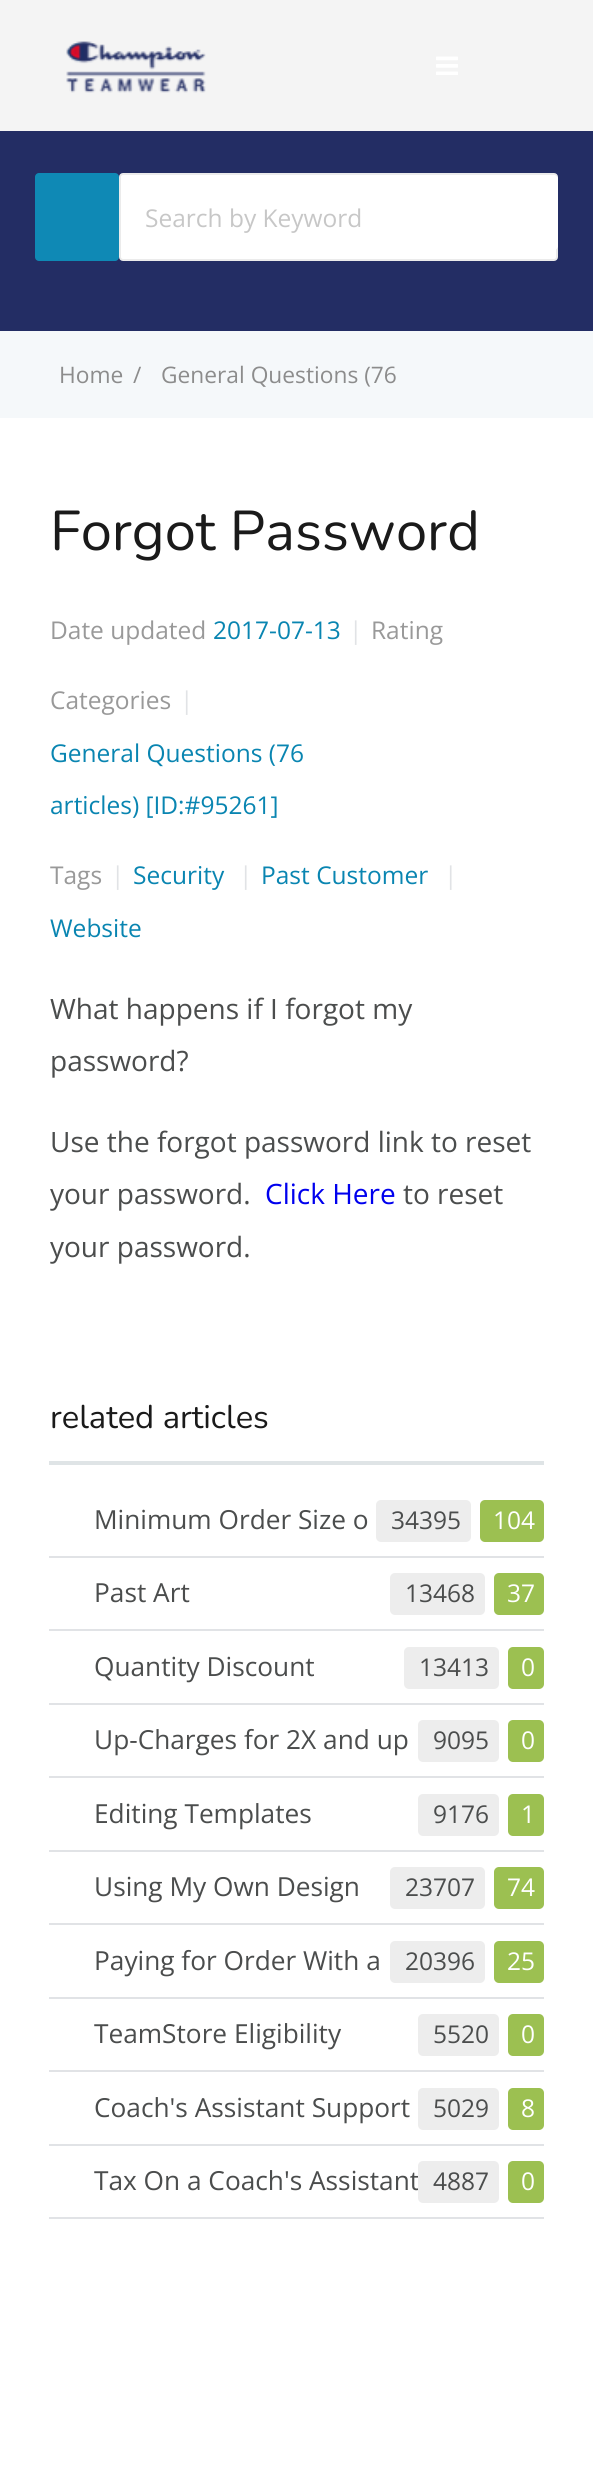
#include <cairo.h>
#include <math.h>
#include <stddef.h>


static void rgb(cairo_t *cr, int r, int g, int b)
{
	cairo_set_source_rgb(cr, r / 255.0, g / 255.0, b / 255.0);
}

static void face(cairo_t *cr, const char *family, double size, int italic, int bold)
{
	cairo_select_font_face(cr, family, italic ? CAIRO_FONT_SLANT_ITALIC : CAIRO_FONT_SLANT_NORMAL,
		bold ? CAIRO_FONT_WEIGHT_BOLD : CAIRO_FONT_WEIGHT_NORMAL);
	cairo_set_font_size(cr, size);
}

static void label(cairo_t *cr, double x, double y, const char *s)
{
	cairo_move_to(cr, x, y);
	cairo_show_text(cr, s);
}

static void rect(cairo_t *cr, double x, double y, double w, double h)
{
	cairo_rectangle(cr, x, y, w, h);
	cairo_fill(cr);
}

static void rrect(cairo_t *cr, double x, double y, double w, double h, double r)
{
	cairo_new_sub_path(cr);
	cairo_arc(cr, x + w - r, y + h - r, r, 0, M_PI / 2);
	cairo_arc(cr, x + r, y + h - r, r, M_PI / 2, M_PI);
	cairo_arc(cr, x + r, y + r, r, M_PI, 1.5 * M_PI);
	cairo_arc(cr, x + w - r, y + r, r, 1.5 * M_PI, 2 * M_PI);
	cairo_close_path(cr);
}

static void image(cairo_t *cr, const char *path, double x, double y, double w, double h)
{
	cairo_surface_t *image = cairo_image_surface_create_from_png(path);
	cairo_save(cr);
	cairo_set_source_surface(cr, image, x, y);
	cairo_rectangle(cr, x, y, w, h);
	cairo_fill(cr);
	cairo_restore(cr);
	cairo_surface_destroy(image);
}

static void draw(cairo_t *cr) {
	rgb(cr, 255, 255, 255);
	cairo_paint(cr);
	rgb(cr, 244, 244, 244);
	rect(cr, 0, 0, 593, 131);
	image(cr, "image0.png", 66, 41, 140, 52);
	image(cr, "image1.png", 436, 56, 22, 19);
	rgb(cr, 35, 45, 100);
	rect(cr, 0, 131, 593, 200);
	rgb(cr, 15, 137, 181);
	rrect(cr, 35, 173, 84, 88, 4);
	cairo_fill(cr);
	rgb(cr, 255, 255, 255);
	rrect(cr, 120, 174, 437, 86, 3);
	cairo_fill_preserve(cr);
	rgb(cr, 235, 235, 235);
	cairo_stroke(cr);
	face(cr, "Open Sans", 24.5, 0, 0);
	rgb(cr, 199, 199, 199);
	label(cr, 145, 227, "Search by Keyword");
	rgb(cr, 255, 255, 255);
	cairo_new_path(cr);
	cairo_move_to(cr, 457, 175);
	cairo_line_to(cr, 554, 175);
	cairo_curve_to(cr, 556, 175, 558, 177, 558, 179);
	cairo_line_to(cr, 558, 246);
	cairo_curve_to(cr, 558, 248, 556, 250, 554, 250);
	cairo_line_to(cr, 457, 250);
	cairo_close_path(cr);
	cairo_fill(cr);
	rgb(cr, 245, 248, 250);
	rect(cr, 0, 331, 593, 87);
	face(cr, "Open Sans", 22.75, 0, 0);
	rgb(cr, 140, 140, 140);
	label(cr, 59, 383, "Home");
	label(cr, 133, 383, "/");
	label(cr, 161, 383, "General Questions (76");
	face(cr, "Nunito", 56, 0, 0);
	rgb(cr, 26, 26, 26);
	label(cr, 50, 550, "Forgot Password");
	face(cr, "Open Sans", 24.5, 0, 0);
	rgb(cr, 153, 153, 153);
	label(cr, 50, 639, "Date updated");
	rgb(cr, 9, 133, 177);
	label(cr, 213, 639, "2017-07-13");
	rgb(cr, 225, 227, 230);
	label(cr, 349, 639, "|");
	rgb(cr, 153, 153, 153);
	label(cr, 371, 639, "Rating");
	label(cr, 50, 709, "Categories");
	rgb(cr, 225, 227, 230);
	label(cr, 180, 709, "|");
	rgb(cr, 9, 133, 177);
	label(cr, 50, 762, "General Questions (76");
	label(cr, 50, 814, "articles) [ID:#95261]");
	rgb(cr, 153, 153, 153);
	label(cr, 50, 884, "Tags");
	rgb(cr, 225, 227, 230);
	label(cr, 111, 884, "|");
	rgb(cr, 9, 133, 177);
	label(cr, 133, 884, "Security");
	rgb(cr, 225, 227, 230);
	label(cr, 239, 884, "|");
	rgb(cr, 9, 133, 177);
	label(cr, 261, 884, "Past Customer");
	rgb(cr, 225, 227, 230);
	label(cr, 444, 884, "|");
	rgb(cr, 9, 133, 177);
	label(cr, 50, 937, "Website");
	face(cr, "Open Sans", 28, 0, 0);
	rgb(cr, 75, 77, 77);
	label(cr, 50, 1019, "What happens if I forgot my");
	label(cr, 50, 1071, "password?");
	label(cr, 50, 1152, "Use the forgot password link to reset");
	label(cr, 50, 1204, "your password.");
	rgb(cr, 0, 0, 238);
	label(cr, 265, 1204, "Click Here");
	rgb(cr, 75, 77, 77);
	label(cr, 403, 1204, "to reset");
	label(cr, 50, 1257, "your password.");
	rgb(cr, 223, 228, 230);
	rect(cr, 49, 1461, 495, 4);
	face(cr, "Nunito", 32.75, 0, 0);
	rgb(cr, 26, 26, 26);
	label(cr, 50, 1428, "related articles");
	rgb(cr, 225, 227, 230);
	rect(cr, 49, 1556, 495, 2);
	face(cr, "Open Sans", 26.25, 0, 0);
	rgb(cr, 75, 77, 77);
	label(cr, 94, 1529, "Minimum Order Size o");
	rgb(cr, 237, 237, 237);
	rrect(cr, 376, 1500, 95, 42, 5);
	cairo_fill(cr);
	face(cr, "Open Sans", 24.5, 0, 0);
	rgb(cr, 75, 77, 77);
	label(cr, 391, 1529, "34395");
	rgb(cr, 156, 192, 81);
	rrect(cr, 480, 1500, 64, 42, 5);
	cairo_fill(cr);
	rgb(cr, 255, 255, 255);
	label(cr, 493, 1529, "104");
	rgb(cr, 225, 227, 230);
	rect(cr, 49, 1629, 495, 2);
	face(cr, "Open Sans", 26.25, 0, 0);
	rgb(cr, 75, 77, 77);
	label(cr, 94, 1602, "Past Art");
	rgb(cr, 237, 237, 237);
	rrect(cr, 390, 1573, 95, 42, 5);
	cairo_fill(cr);
	face(cr, "Open Sans", 24.5, 0, 0);
	rgb(cr, 75, 77, 77);
	label(cr, 405, 1602, "13468");
	rgb(cr, 156, 192, 81);
	rrect(cr, 494, 1573, 50, 42, 5);
	cairo_fill(cr);
	rgb(cr, 255, 255, 255);
	label(cr, 507, 1602, "37");
	rgb(cr, 225, 227, 230);
	rect(cr, 49, 1703, 495, 2);
	face(cr, "Open Sans", 26.25, 0, 0);
	rgb(cr, 75, 77, 77);
	label(cr, 94, 1676, "Quantity Discount");
	rgb(cr, 237, 237, 237);
	rrect(cr, 404, 1647, 95, 42, 5);
	cairo_fill(cr);
	face(cr, "Open Sans", 24.5, 0, 0);
	rgb(cr, 75, 77, 77);
	label(cr, 419, 1676, "13413");
	rgb(cr, 156, 192, 81);
	rrect(cr, 508, 1647, 36, 42, 5);
	cairo_fill(cr);
	rgb(cr, 255, 255, 255);
	label(cr, 521, 1676, "0");
	rgb(cr, 225, 227, 230);
	rect(cr, 49, 1776, 495, 2);
	face(cr, "Open Sans", 26.25, 0, 0);
	rgb(cr, 75, 77, 77);
	label(cr, 94, 1749, "Up-Charges for 2X and up");
	rgb(cr, 237, 237, 237);
	rrect(cr, 418, 1720, 81, 42, 5);
	cairo_fill(cr);
	face(cr, "Open Sans", 24.5, 0, 0);
	rgb(cr, 75, 77, 77);
	label(cr, 433, 1749, "9095");
	rgb(cr, 156, 192, 81);
	rrect(cr, 508, 1720, 36, 42, 5);
	cairo_fill(cr);
	rgb(cr, 255, 255, 255);
	label(cr, 521, 1749, "0");
	rgb(cr, 225, 227, 230);
	rect(cr, 49, 1850, 495, 2);
	face(cr, "Open Sans", 26.25, 0, 0);
	rgb(cr, 75, 77, 77);
	label(cr, 94, 1823, "Editing Templates");
	rgb(cr, 237, 237, 237);
	rrect(cr, 418, 1794, 81, 42, 5);
	cairo_fill(cr);
	face(cr, "Open Sans", 24.5, 0, 0);
	rgb(cr, 75, 77, 77);
	label(cr, 433, 1823, "9176");
	rgb(cr, 156, 192, 81);
	rrect(cr, 508, 1794, 36, 42, 5);
	cairo_fill(cr);
	rgb(cr, 255, 255, 255);
	label(cr, 521, 1823, "1");
	rgb(cr, 225, 227, 230);
	rect(cr, 49, 1923, 495, 2);
	face(cr, "Open Sans", 26.25, 0, 0);
	rgb(cr, 75, 77, 77);
	label(cr, 94, 1896, "Using My Own Design");
	rgb(cr, 237, 237, 237);
	rrect(cr, 390, 1867, 95, 42, 5);
	cairo_fill(cr);
	face(cr, "Open Sans", 24.5, 0, 0);
	rgb(cr, 75, 77, 77);
	label(cr, 405, 1896, "23707");
	rgb(cr, 156, 192, 81);
	rrect(cr, 494, 1867, 50, 42, 5);
	cairo_fill(cr);
	rgb(cr, 255, 255, 255);
	label(cr, 507, 1896, "74");
	rgb(cr, 225, 227, 230);
	rect(cr, 49, 1997, 495, 2);
	face(cr, "Open Sans", 26.25, 0, 0);
	rgb(cr, 75, 77, 77);
	label(cr, 94, 1970, "Paying for Order With a");
	rgb(cr, 237, 237, 237);
	rrect(cr, 390, 1941, 95, 42, 5);
	cairo_fill(cr);
	face(cr, "Open Sans", 24.5, 0, 0);
	rgb(cr, 75, 77, 77);
	label(cr, 405, 1970, "20396");
	rgb(cr, 156, 192, 81);
	rrect(cr, 494, 1941, 50, 42, 5);
	cairo_fill(cr);
	rgb(cr, 255, 255, 255);
	label(cr, 507, 1970, "25");
	rgb(cr, 225, 227, 230);
	rect(cr, 49, 2070, 495, 2);
	face(cr, "Open Sans", 26.25, 0, 0);
	rgb(cr, 75, 77, 77);
	label(cr, 94, 2043, "TeamStore Eligibility");
	rgb(cr, 237, 237, 237);
	rrect(cr, 418, 2014, 81, 42, 5);
	cairo_fill(cr);
	face(cr, "Open Sans", 24.5, 0, 0);
	rgb(cr, 75, 77, 77);
	label(cr, 433, 2043, "5520");
	rgb(cr, 156, 192, 81);
	rrect(cr, 508, 2014, 36, 42, 5);
	cairo_fill(cr);
	rgb(cr, 255, 255, 255);
	label(cr, 521, 2043, "0");
	rgb(cr, 225, 227, 230);
	rect(cr, 49, 2144, 495, 2);
	face(cr, "Open Sans", 26.25, 0, 0);
	rgb(cr, 75, 77, 77);
	label(cr, 94, 2117, "Coach's Assistant Support");
	rgb(cr, 237, 237, 237);
	rrect(cr, 418, 2088, 81, 42, 5);
	cairo_fill(cr);
	face(cr, "Open Sans", 24.5, 0, 0);
	rgb(cr, 75, 77, 77);
	label(cr, 433, 2117, "5029");
	rgb(cr, 156, 192, 81);
	rrect(cr, 508, 2088, 36, 42, 5);
	cairo_fill(cr);
	rgb(cr, 255, 255, 255);
	label(cr, 521, 2117, "8");
	rgb(cr, 225, 227, 230);
	rect(cr, 49, 2217, 495, 2);
	face(cr, "Open Sans", 26.25, 0, 0);
	rgb(cr, 75, 77, 77);
	label(cr, 94, 2190, "Tax On a Coach's Assistant");
	rgb(cr, 237, 237, 237);
	rrect(cr, 418, 2161, 81, 42, 5);
	cairo_fill(cr);
	face(cr, "Open Sans", 24.5, 0, 0);
	rgb(cr, 75, 77, 77);
	label(cr, 433, 2190, "4887");
	rgb(cr, 156, 192, 81);
	rrect(cr, 508, 2161, 36, 42, 5);
	cairo_fill(cr);
	rgb(cr, 255, 255, 255);
	label(cr, 521, 2190, "0");
}

int main(void) {
	cairo_surface_t *surface = cairo_image_surface_create(CAIRO_FORMAT_RGB24, 593, 2484);
	cairo_t *cr = cairo_create(surface);
	cairo_font_options_t *options = cairo_font_options_create();
	cairo_font_options_set_hint_metrics(options, CAIRO_HINT_METRICS_OFF);
	cairo_font_options_set_hint_style(options, CAIRO_HINT_STYLE_NONE);
	cairo_set_font_options(cr, options);
	cairo_set_miter_limit(cr, 4);
	draw(cr);
	cairo_surface_write_to_png(surface, "render.png");
	cairo_font_options_destroy(options);
	cairo_destroy(cr);
	cairo_surface_destroy(surface);
	return 0;
}
